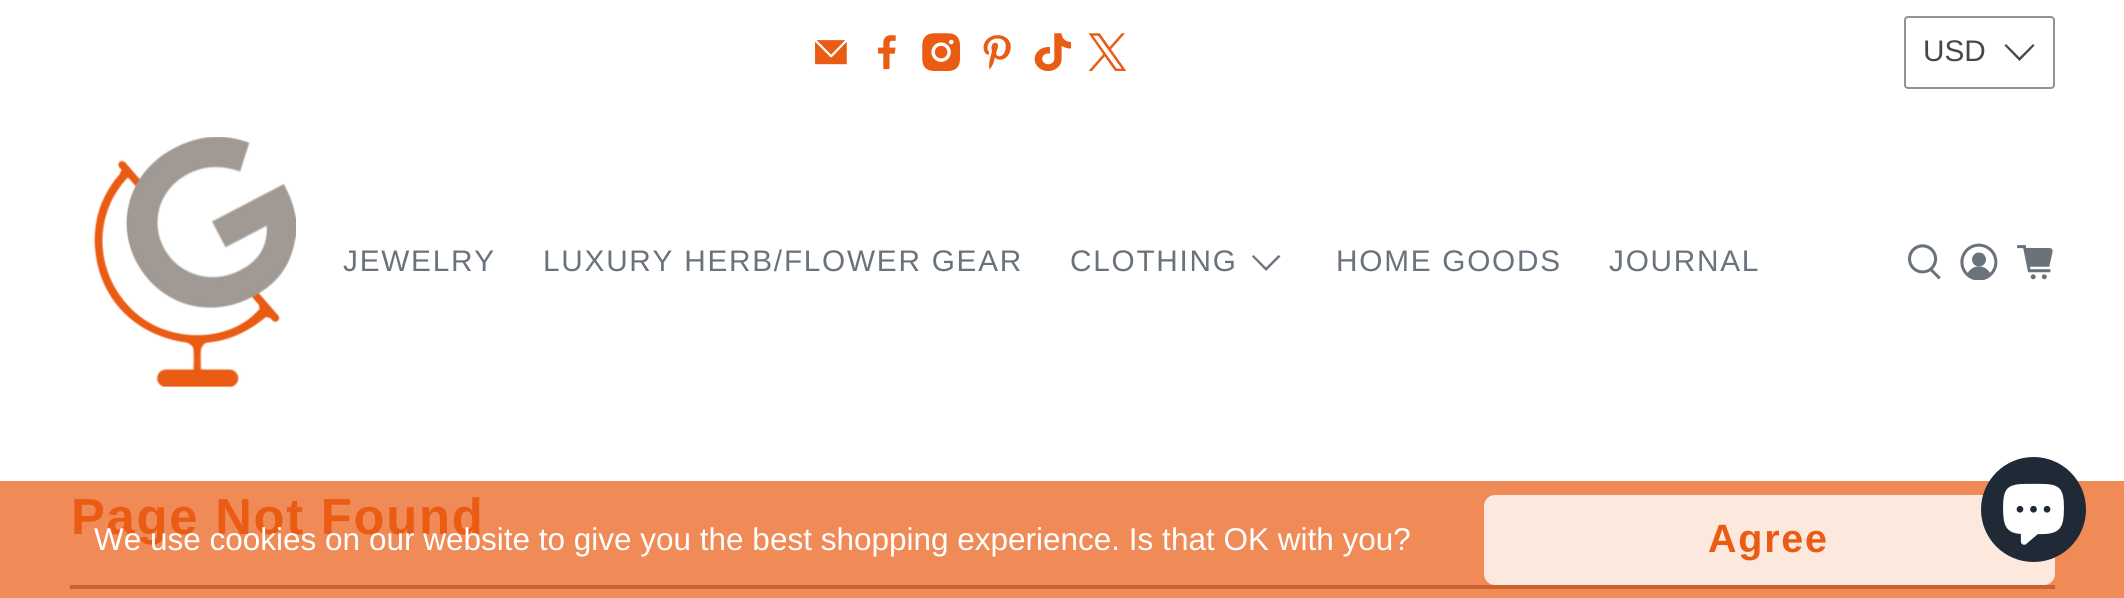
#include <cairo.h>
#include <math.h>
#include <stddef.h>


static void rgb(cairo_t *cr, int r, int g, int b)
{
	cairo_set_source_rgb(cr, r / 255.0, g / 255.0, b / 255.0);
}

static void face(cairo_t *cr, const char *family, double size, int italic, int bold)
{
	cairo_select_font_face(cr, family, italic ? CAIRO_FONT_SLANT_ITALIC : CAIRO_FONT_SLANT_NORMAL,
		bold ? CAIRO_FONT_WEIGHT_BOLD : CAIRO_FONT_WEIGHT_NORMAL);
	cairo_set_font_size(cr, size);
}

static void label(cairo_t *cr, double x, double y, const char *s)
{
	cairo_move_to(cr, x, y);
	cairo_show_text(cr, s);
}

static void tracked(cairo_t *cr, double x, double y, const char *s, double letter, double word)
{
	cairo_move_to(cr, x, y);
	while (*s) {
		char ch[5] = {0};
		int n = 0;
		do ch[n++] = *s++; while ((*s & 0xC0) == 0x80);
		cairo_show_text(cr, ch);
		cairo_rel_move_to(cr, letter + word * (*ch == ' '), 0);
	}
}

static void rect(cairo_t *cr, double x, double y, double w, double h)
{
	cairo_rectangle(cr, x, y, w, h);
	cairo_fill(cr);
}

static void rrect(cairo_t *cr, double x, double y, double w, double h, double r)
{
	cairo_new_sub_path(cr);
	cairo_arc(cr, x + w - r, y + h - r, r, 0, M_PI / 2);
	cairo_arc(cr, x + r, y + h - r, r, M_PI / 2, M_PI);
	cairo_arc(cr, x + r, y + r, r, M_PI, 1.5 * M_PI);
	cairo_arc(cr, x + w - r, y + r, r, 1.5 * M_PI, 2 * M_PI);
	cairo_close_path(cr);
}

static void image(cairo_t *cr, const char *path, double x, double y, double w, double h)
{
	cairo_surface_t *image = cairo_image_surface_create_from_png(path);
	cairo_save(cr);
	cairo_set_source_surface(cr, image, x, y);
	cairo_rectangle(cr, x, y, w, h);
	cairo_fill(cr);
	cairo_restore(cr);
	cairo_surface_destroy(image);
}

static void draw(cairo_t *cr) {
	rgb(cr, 255, 255, 255);
	cairo_paint(cr);
	rgb(cr, 240, 139, 87);
	rect(cr, 0, 481, 2124, 117);
	image(cr, "image0.png", 815, 40, 32, 25);
	image(cr, "image1.png", 878, 35, 18, 35);
	image(cr, "image2.png", 922, 33, 39, 39);
	image(cr, "image3.png", 983, 35, 28, 35);
	image(cr, "image4.png", 1034, 33, 37, 38);
	image(cr, "image5.png", 1089, 33, 38, 38);
	rrect(cr, 1905, 17, 149, 71, 3);
	rgb(cr, 143, 147, 151);
	cairo_stroke(cr);
	face(cr, "Liberation Sans", 29.75, 0, 0);
	rgb(cr, 71, 71, 71);
	label(cr, 1923, 61, "USD");
	cairo_new_path(cr);
	cairo_move_to(cr, 2019.5, 61);
	cairo_line_to(cr, 2004.5, 45.5);
	cairo_line_to(cr, 2006, 44);
	cairo_line_to(cr, 2019.5, 57.5);
	cairo_line_to(cr, 2033, 44);
	cairo_line_to(cr, 2034.5, 45.5);
	cairo_close_path(cr);
	cairo_fill(cr);
	image(cr, "image6.png", 94, 137, 202, 250);
	rgb(cr, 106, 114, 123);
	tracked(cr, 343, 271, "JEWELRY", 1.75, 0);
	tracked(cr, 543, 271, "LUXURY HERB/FLOWER GEAR", 1.75, 0);
	tracked(cr, 1070, 271, "CLOTHING", 1.75, 0);
	cairo_new_path(cr);
	cairo_move_to(cr, 1266, 271);
	cairo_line_to(cr, 1252, 256.5);
	cairo_line_to(cr, 1253.5, 255);
	cairo_line_to(cr, 1266, 267.5);
	cairo_line_to(cr, 1278.5, 255);
	cairo_line_to(cr, 1280.5, 256.5);
	cairo_close_path(cr);
	cairo_fill(cr);
	tracked(cr, 1336, 271, "HOME GOODS", 1.75, 0);
	tracked(cr, 1609, 271, "JOURNAL", 1.75, 0);
	image(cr, "image7.png", 1908, 244, 33, 36);
	image(cr, "image8.png", 1960, 243, 38, 37);
	image(cr, "image9.png", 2017, 245, 36, 35);
	face(cr, "Liberation Sans", 50.75, 0, 1);
	rgb(cr, 234, 91, 19);
	tracked(cr, 71, 534, "Page Not Found", 1.75, 0);
	rgb(cr, 200, 98, 47);
	rect(cr, 70, 585, 1985, 4);
	rgb(cr, 252, 232, 221);
	rrect(cr, 1484, 495, 571, 90, 11);
	cairo_fill(cr);
	rgb(cr, 32, 42, 54);
	cairo_arc(cr, 2033.5, 509.5, 52.5, 0, 2 * M_PI);
	cairo_fill(cr);
	image(cr, "image10.png", 2003, 483, 61, 62);
	face(cr, "Liberation Sans", 31.5, 0, 0);
	rgb(cr, 255, 255, 255);
	label(cr, 94, 550, "We use cookies on our website to give you the best shopping experience. Is that OK with you?");
	face(cr, "Liberation Sans", 39.5, 0, 1);
	rgb(cr, 234, 91, 19);
	tracked(cr, 1708, 552, "Agree", 1.75, 0);
}

int main(void) {
	cairo_surface_t *surface = cairo_image_surface_create(CAIRO_FORMAT_RGB24, 2124, 598);
	cairo_t *cr = cairo_create(surface);
	cairo_font_options_t *options = cairo_font_options_create();
	cairo_font_options_set_hint_metrics(options, CAIRO_HINT_METRICS_OFF);
	cairo_font_options_set_hint_style(options, CAIRO_HINT_STYLE_NONE);
	cairo_set_font_options(cr, options);
	cairo_set_miter_limit(cr, 4);
	draw(cr);
	cairo_surface_write_to_png(surface, "render.png");
	cairo_font_options_destroy(options);
	cairo_destroy(cr);
	cairo_surface_destroy(surface);
	return 0;
}
